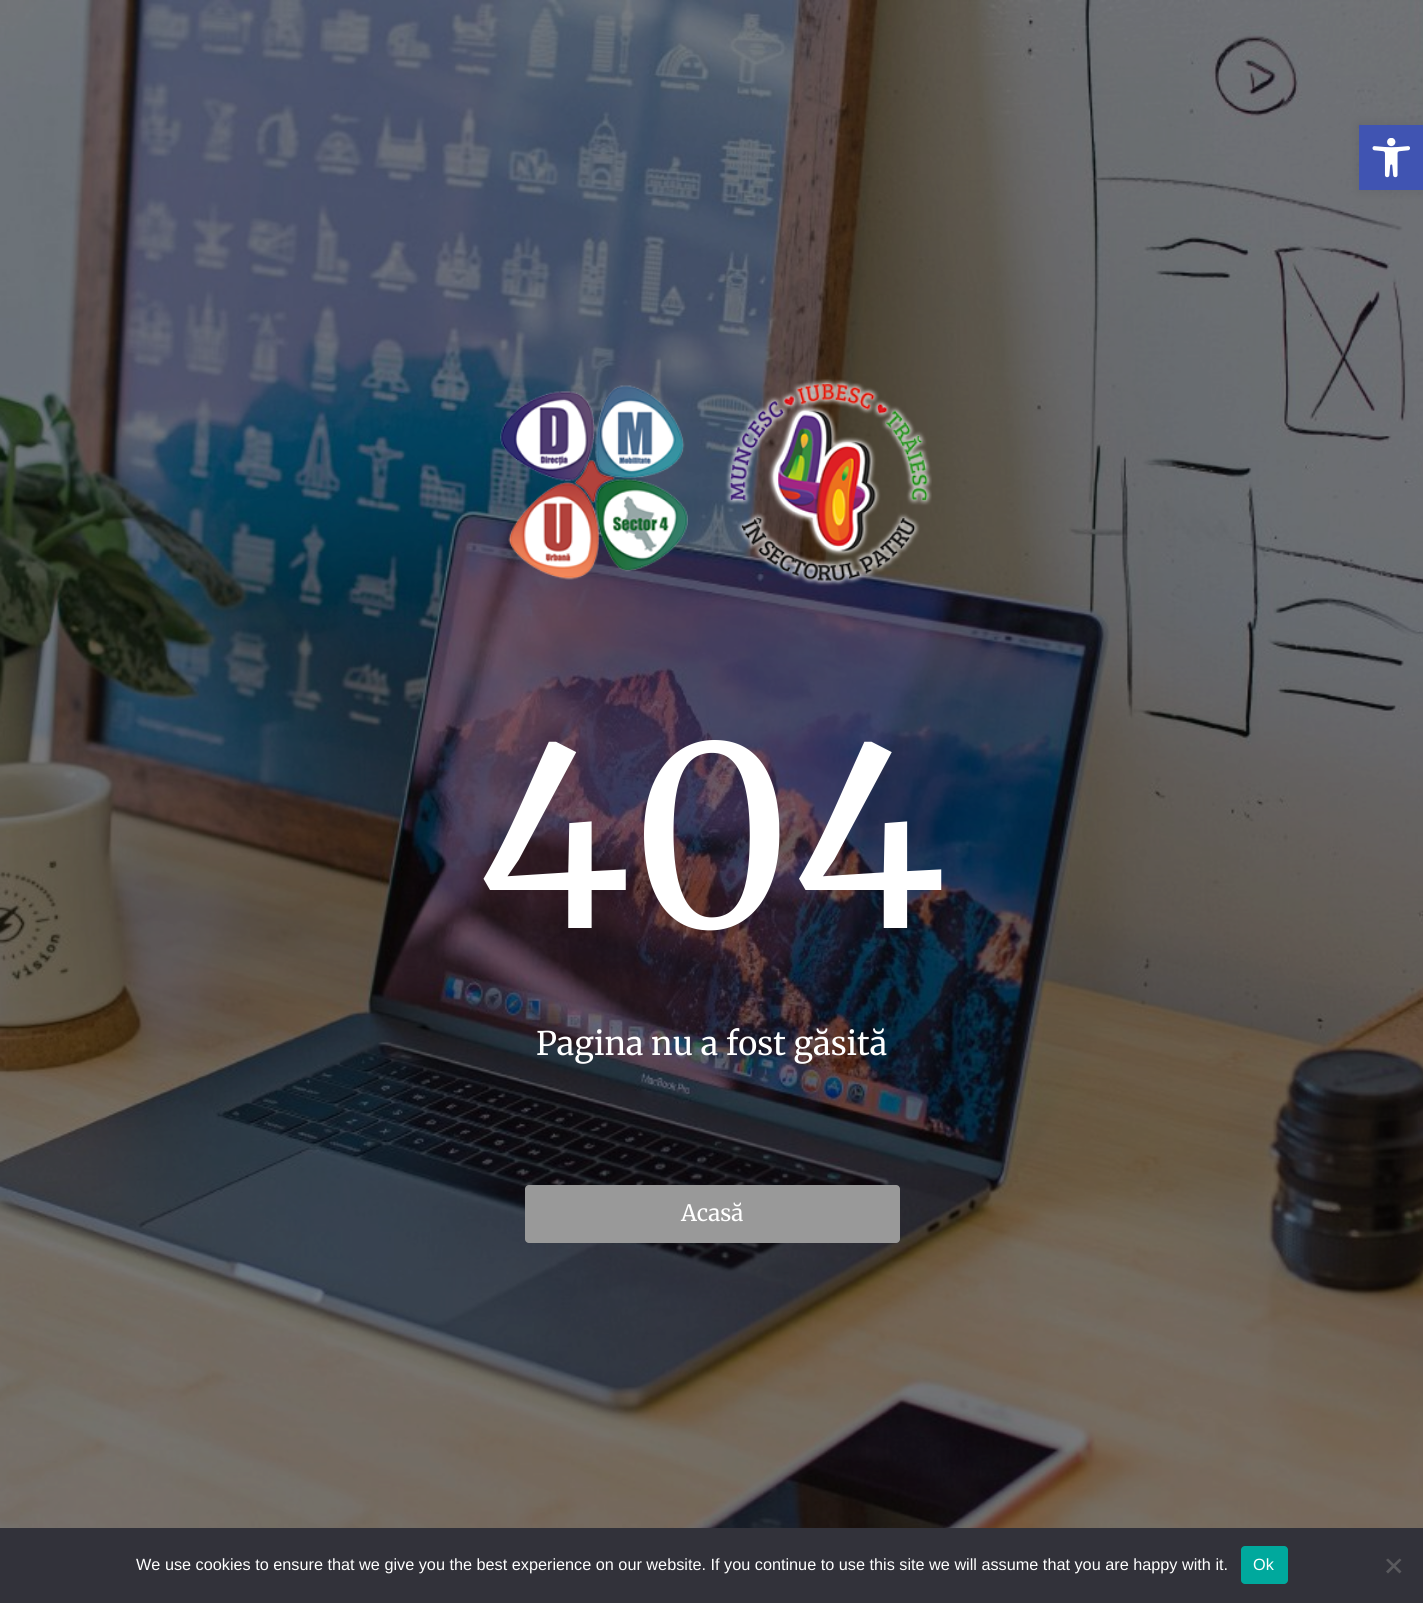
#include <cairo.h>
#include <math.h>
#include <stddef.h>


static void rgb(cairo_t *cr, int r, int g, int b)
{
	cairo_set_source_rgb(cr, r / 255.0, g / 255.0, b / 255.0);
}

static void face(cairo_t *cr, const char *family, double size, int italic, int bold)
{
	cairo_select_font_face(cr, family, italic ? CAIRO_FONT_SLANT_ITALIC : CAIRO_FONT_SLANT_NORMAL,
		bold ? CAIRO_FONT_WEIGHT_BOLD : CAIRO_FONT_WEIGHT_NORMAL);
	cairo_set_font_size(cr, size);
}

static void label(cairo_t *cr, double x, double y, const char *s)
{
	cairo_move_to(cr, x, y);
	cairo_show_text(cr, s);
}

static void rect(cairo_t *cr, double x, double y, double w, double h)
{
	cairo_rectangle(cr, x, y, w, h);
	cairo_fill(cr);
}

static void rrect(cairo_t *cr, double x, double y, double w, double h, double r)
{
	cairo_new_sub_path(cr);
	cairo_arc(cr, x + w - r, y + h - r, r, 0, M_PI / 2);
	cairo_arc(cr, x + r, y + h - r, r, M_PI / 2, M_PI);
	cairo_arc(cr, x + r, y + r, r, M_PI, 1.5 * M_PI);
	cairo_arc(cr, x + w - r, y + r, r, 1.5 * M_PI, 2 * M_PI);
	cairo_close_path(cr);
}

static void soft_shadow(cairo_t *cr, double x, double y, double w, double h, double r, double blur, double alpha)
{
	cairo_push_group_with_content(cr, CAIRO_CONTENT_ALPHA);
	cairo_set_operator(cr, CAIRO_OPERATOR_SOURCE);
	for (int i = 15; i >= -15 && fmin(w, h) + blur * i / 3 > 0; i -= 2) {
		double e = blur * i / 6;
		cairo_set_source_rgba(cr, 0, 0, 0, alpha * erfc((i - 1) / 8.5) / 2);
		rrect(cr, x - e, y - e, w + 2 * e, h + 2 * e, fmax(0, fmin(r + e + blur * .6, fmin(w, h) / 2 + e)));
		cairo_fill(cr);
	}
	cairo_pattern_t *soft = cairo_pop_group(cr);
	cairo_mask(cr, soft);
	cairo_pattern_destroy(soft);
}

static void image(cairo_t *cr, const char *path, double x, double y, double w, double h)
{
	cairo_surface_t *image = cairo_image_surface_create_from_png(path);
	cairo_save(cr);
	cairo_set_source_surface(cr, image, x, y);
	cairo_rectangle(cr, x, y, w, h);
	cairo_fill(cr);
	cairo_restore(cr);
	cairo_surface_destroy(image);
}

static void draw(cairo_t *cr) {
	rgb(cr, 255, 255, 255);
	cairo_paint(cr);
	image(cr, "image1.png", 0, 0, 1423, 1528);
	rgb(cr, 0, 0, 0);
	soft_shadow(cr, 1359, 125, 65, 65, 0, 6, 0.1);
	rgb(cr, 64, 84, 178);
	rect(cr, 1359, 125, 64, 65);
	image(cr, "image0.png", 1372, 138, 38, 40);
	image(cr, "image2.png", 500, 379, 432, 207);
	face(cr, "Merriweather", 250, 0, 0);
	rgb(cr, 255, 255, 255);
	label(cr, 477, 928, "404");
	face(cr, "Merriweather", 32.5, 0, 0);
	label(cr, 536, 1055, "Pagina nu a fost găsită");
	rgb(cr, 153, 153, 153);
	rrect(cr, 525, 1185, 375, 58, 4);
	cairo_fill(cr);
	face(cr, "Merriweather", 22.5, 0, 0);
	rgb(cr, 255, 255, 255);
	label(cr, 681, 1221, "Acasă");
	rgb(cr, 50, 50, 58);
	rect(cr, 0, 1528, 1423, 75);
	face(cr, "Liberation Sans", 16.25, 0, 0);
	rgb(cr, 255, 255, 255);
	label(cr, 136, 1570, "We use cookies to ensure that we give you the best experience on our website. If you continue to use this site we will assume that you are happy with it.");
	rgb(cr, 0, 169, 157);
	rrect(cr, 1241, 1546, 47, 38, 4);
	cairo_fill(cr);
	rgb(cr, 255, 255, 255);
	label(cr, 1253, 1570, "Ok");
	rgb(cr, 89, 89, 93);
	cairo_new_path(cr);
	cairo_move_to(cr, 1399.5, 1558.5);
	cairo_line_to(cr, 1401.5, 1560);
	cairo_line_to(cr, 1388, 1573.5);
	cairo_line_to(cr, 1386, 1571.5);
	cairo_close_path(cr);
	cairo_fill(cr);
	cairo_new_path(cr);
	cairo_move_to(cr, 1386, 1560);
	cairo_line_to(cr, 1388, 1558.5);
	cairo_line_to(cr, 1401.5, 1571.5);
	cairo_line_to(cr, 1399.5, 1573.5);
	cairo_close_path(cr);
	cairo_fill(cr);
}

int main(void) {
	cairo_surface_t *surface = cairo_image_surface_create(CAIRO_FORMAT_RGB24, 1423, 1603);
	cairo_t *cr = cairo_create(surface);
	cairo_font_options_t *options = cairo_font_options_create();
	cairo_font_options_set_hint_metrics(options, CAIRO_HINT_METRICS_OFF);
	cairo_font_options_set_hint_style(options, CAIRO_HINT_STYLE_NONE);
	cairo_set_font_options(cr, options);
	cairo_set_miter_limit(cr, 4);
	draw(cr);
	cairo_surface_write_to_png(surface, "render.png");
	cairo_font_options_destroy(options);
	cairo_destroy(cr);
	cairo_surface_destroy(surface);
	return 0;
}
